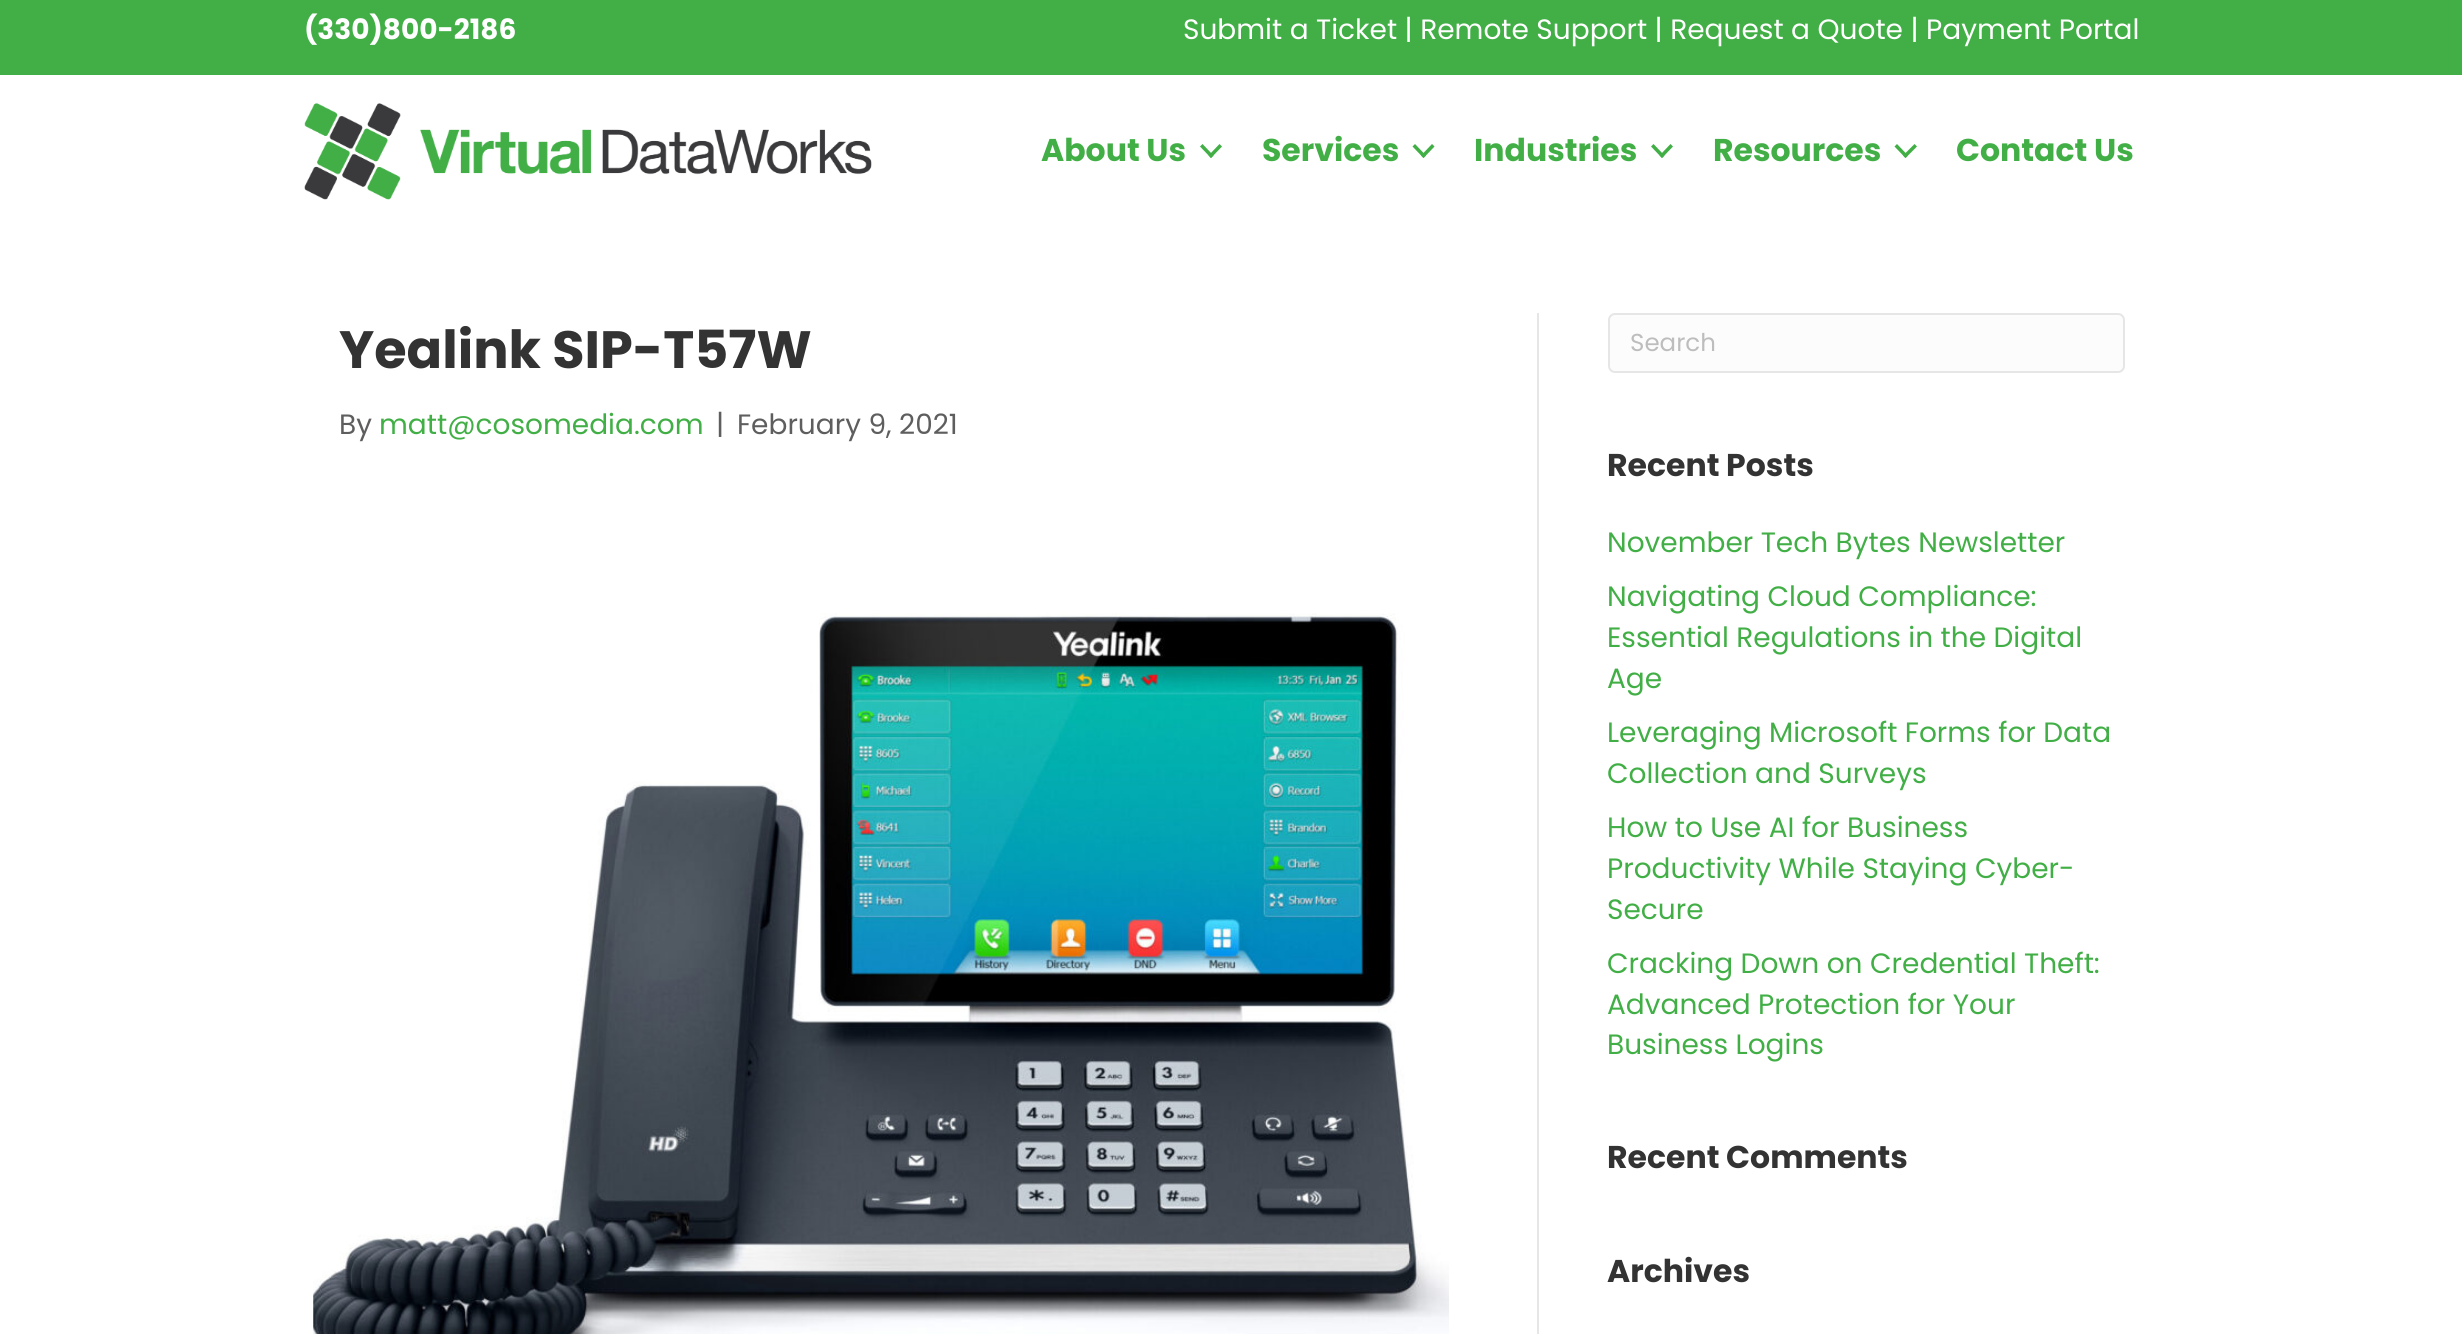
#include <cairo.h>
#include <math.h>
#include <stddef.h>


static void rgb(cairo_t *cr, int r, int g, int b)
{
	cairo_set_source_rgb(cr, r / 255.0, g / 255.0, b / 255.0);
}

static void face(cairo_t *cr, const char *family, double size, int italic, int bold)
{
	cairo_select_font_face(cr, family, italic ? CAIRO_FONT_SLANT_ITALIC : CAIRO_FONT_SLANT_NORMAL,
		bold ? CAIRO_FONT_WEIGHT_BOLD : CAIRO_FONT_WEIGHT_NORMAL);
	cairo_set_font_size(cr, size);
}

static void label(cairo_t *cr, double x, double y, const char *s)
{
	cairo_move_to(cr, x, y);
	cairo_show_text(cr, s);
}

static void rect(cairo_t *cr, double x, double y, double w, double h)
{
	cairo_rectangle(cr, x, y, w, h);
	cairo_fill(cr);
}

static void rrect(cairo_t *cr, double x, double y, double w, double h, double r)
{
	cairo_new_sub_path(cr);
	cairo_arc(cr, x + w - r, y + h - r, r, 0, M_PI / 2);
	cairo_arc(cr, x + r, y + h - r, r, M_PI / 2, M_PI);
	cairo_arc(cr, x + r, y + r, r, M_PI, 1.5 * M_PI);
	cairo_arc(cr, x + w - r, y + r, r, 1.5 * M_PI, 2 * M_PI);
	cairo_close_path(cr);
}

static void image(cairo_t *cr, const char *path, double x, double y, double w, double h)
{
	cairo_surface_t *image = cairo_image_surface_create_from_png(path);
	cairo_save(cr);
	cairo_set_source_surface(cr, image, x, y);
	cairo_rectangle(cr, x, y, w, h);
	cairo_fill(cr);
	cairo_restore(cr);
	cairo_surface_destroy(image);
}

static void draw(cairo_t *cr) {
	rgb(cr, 255, 255, 255);
	cairo_paint(cr);
	rgb(cr, 65, 175, 70);
	rect(cr, 0, 0, 2462, 75);
	face(cr, "Poppins", 28, 0, 1);
	rgb(cr, 255, 255, 255);
	label(cr, 304, 39, "(330)800-2186");
	face(cr, "Poppins", 28, 0, 0);
	label(cr, 1183, 39, "Submit a Ticket | Remote Support | Request a Quote | Payment Portal");
	image(cr, "image0.png", 304, 103, 568, 97);
	face(cr, "Poppins", 31.5, 0, 1);
	rgb(cr, 65, 175, 70);
	label(cr, 1041, 161, "About Us");
	cairo_new_path(cr);
	cairo_move_to(cr, 1219.5, 144);
	cairo_line_to(cr, 1222, 146.5);
	cairo_line_to(cr, 1211, 158);
	cairo_line_to(cr, 1208.5, 155.5);
	cairo_close_path(cr);
	cairo_fill(cr);
	cairo_new_path(cr);
	cairo_move_to(cr, 1202.5, 144);
	cairo_line_to(cr, 1213.5, 155.5);
	cairo_line_to(cr, 1211, 158);
	cairo_line_to(cr, 1200, 146.5);
	cairo_close_path(cr);
	cairo_fill(cr);
	label(cr, 1262, 161, "Services");
	cairo_new_path(cr);
	cairo_move_to(cr, 1432, 144);
	cairo_line_to(cr, 1434.5, 146.5);
	cairo_line_to(cr, 1423.5, 158);
	cairo_line_to(cr, 1421, 155.5);
	cairo_close_path(cr);
	cairo_fill(cr);
	cairo_new_path(cr);
	cairo_move_to(cr, 1415, 144);
	cairo_line_to(cr, 1426, 155.5);
	cairo_line_to(cr, 1423.5, 158);
	cairo_line_to(cr, 1412.5, 146.5);
	cairo_close_path(cr);
	cairo_fill(cr);
	label(cr, 1474, 161, "Industries");
	cairo_new_path(cr);
	cairo_move_to(cr, 1670.5, 144);
	cairo_line_to(cr, 1673, 146.5);
	cairo_line_to(cr, 1662, 158);
	cairo_line_to(cr, 1659.5, 155.5);
	cairo_close_path(cr);
	cairo_fill(cr);
	cairo_new_path(cr);
	cairo_move_to(cr, 1653.5, 144);
	cairo_line_to(cr, 1664.5, 155.5);
	cairo_line_to(cr, 1662, 158);
	cairo_line_to(cr, 1651, 146.5);
	cairo_close_path(cr);
	cairo_fill(cr);
	label(cr, 1713, 161, "Resources");
	cairo_new_path(cr);
	cairo_move_to(cr, 1914.5, 144);
	cairo_line_to(cr, 1917, 146.5);
	cairo_line_to(cr, 1905.5, 158);
	cairo_line_to(cr, 1903, 155.5);
	cairo_close_path(cr);
	cairo_fill(cr);
	cairo_new_path(cr);
	cairo_move_to(cr, 1897, 144);
	cairo_line_to(cr, 1908, 155.5);
	cairo_line_to(cr, 1905.5, 158);
	cairo_line_to(cr, 1894.5, 146.5);
	cairo_close_path(cr);
	cairo_fill(cr);
	label(cr, 1956, 161, "Contact Us");
	rgb(cr, 230, 230, 230);
	rect(cr, 1537, 313, 2, 1021);
	face(cr, "Poppins", 52.5, 0, 1);
	rgb(cr, 51, 51, 51);
	label(cr, 339, 368, "Yealink SIP-T57W");
	face(cr, "Poppins", 28, 0, 0);
	rgb(cr, 94, 94, 94);
	label(cr, 339, 434, "By");
	rgb(cr, 65, 175, 70);
	label(cr, 379, 434, "matt@cosomedia.com");
	rgb(cr, 94, 94, 94);
	label(cr, 716, 434, "|");
	label(cr, 737, 434, "February 9, 2021");
	image(cr, "image1.png", 313, 613, 1136, 721);
	rgb(cr, 252, 252, 252);
	rrect(cr, 1609, 314, 515, 58, 6);
	cairo_fill_preserve(cr);
	rgb(cr, 230, 230, 230);
	cairo_stroke(cr);
	face(cr, "Poppins", 24.5, 0, 0);
	rgb(cr, 189, 189, 189);
	label(cr, 1630, 351, "Search");
	face(cr, "Poppins", 31.5, 0, 1);
	rgb(cr, 51, 51, 51);
	label(cr, 1607, 476, "Recent Posts");
	face(cr, "Poppins", 28, 0, 0);
	rgb(cr, 65, 175, 70);
	label(cr, 1607, 552, "November Tech Bytes Newsletter");
	label(cr, 1607, 606, "Navigating Cloud Compliance:");
	label(cr, 1607, 647, "Essential Regulations in the Digital");
	label(cr, 1607, 688, "Age");
	label(cr, 1607, 742, "Leveraging Microsoft Forms for Data");
	label(cr, 1607, 783, "Collection and Surveys");
	label(cr, 1607, 837, "How to Use AI for Business");
	label(cr, 1607, 878, "Productivity While Staying Cyber-");
	label(cr, 1607, 919, "Secure");
	label(cr, 1607, 973, "Cracking Down on Credential Theft:");
	label(cr, 1607, 1014, "Advanced Protection for Your");
	label(cr, 1607, 1054, "Business Logins");
	face(cr, "Poppins", 31.5, 0, 1);
	rgb(cr, 51, 51, 51);
	label(cr, 1607, 1168, "Recent Comments");
	label(cr, 1607, 1282, "Archives");
}

int main(void) {
	cairo_surface_t *surface = cairo_image_surface_create(CAIRO_FORMAT_RGB24, 2462, 1334);
	cairo_t *cr = cairo_create(surface);
	cairo_font_options_t *options = cairo_font_options_create();
	cairo_font_options_set_hint_metrics(options, CAIRO_HINT_METRICS_OFF);
	cairo_font_options_set_hint_style(options, CAIRO_HINT_STYLE_NONE);
	cairo_set_font_options(cr, options);
	cairo_set_miter_limit(cr, 4);
	draw(cr);
	cairo_surface_write_to_png(surface, "render.png");
	cairo_font_options_destroy(options);
	cairo_destroy(cr);
	cairo_surface_destroy(surface);
	return 0;
}
